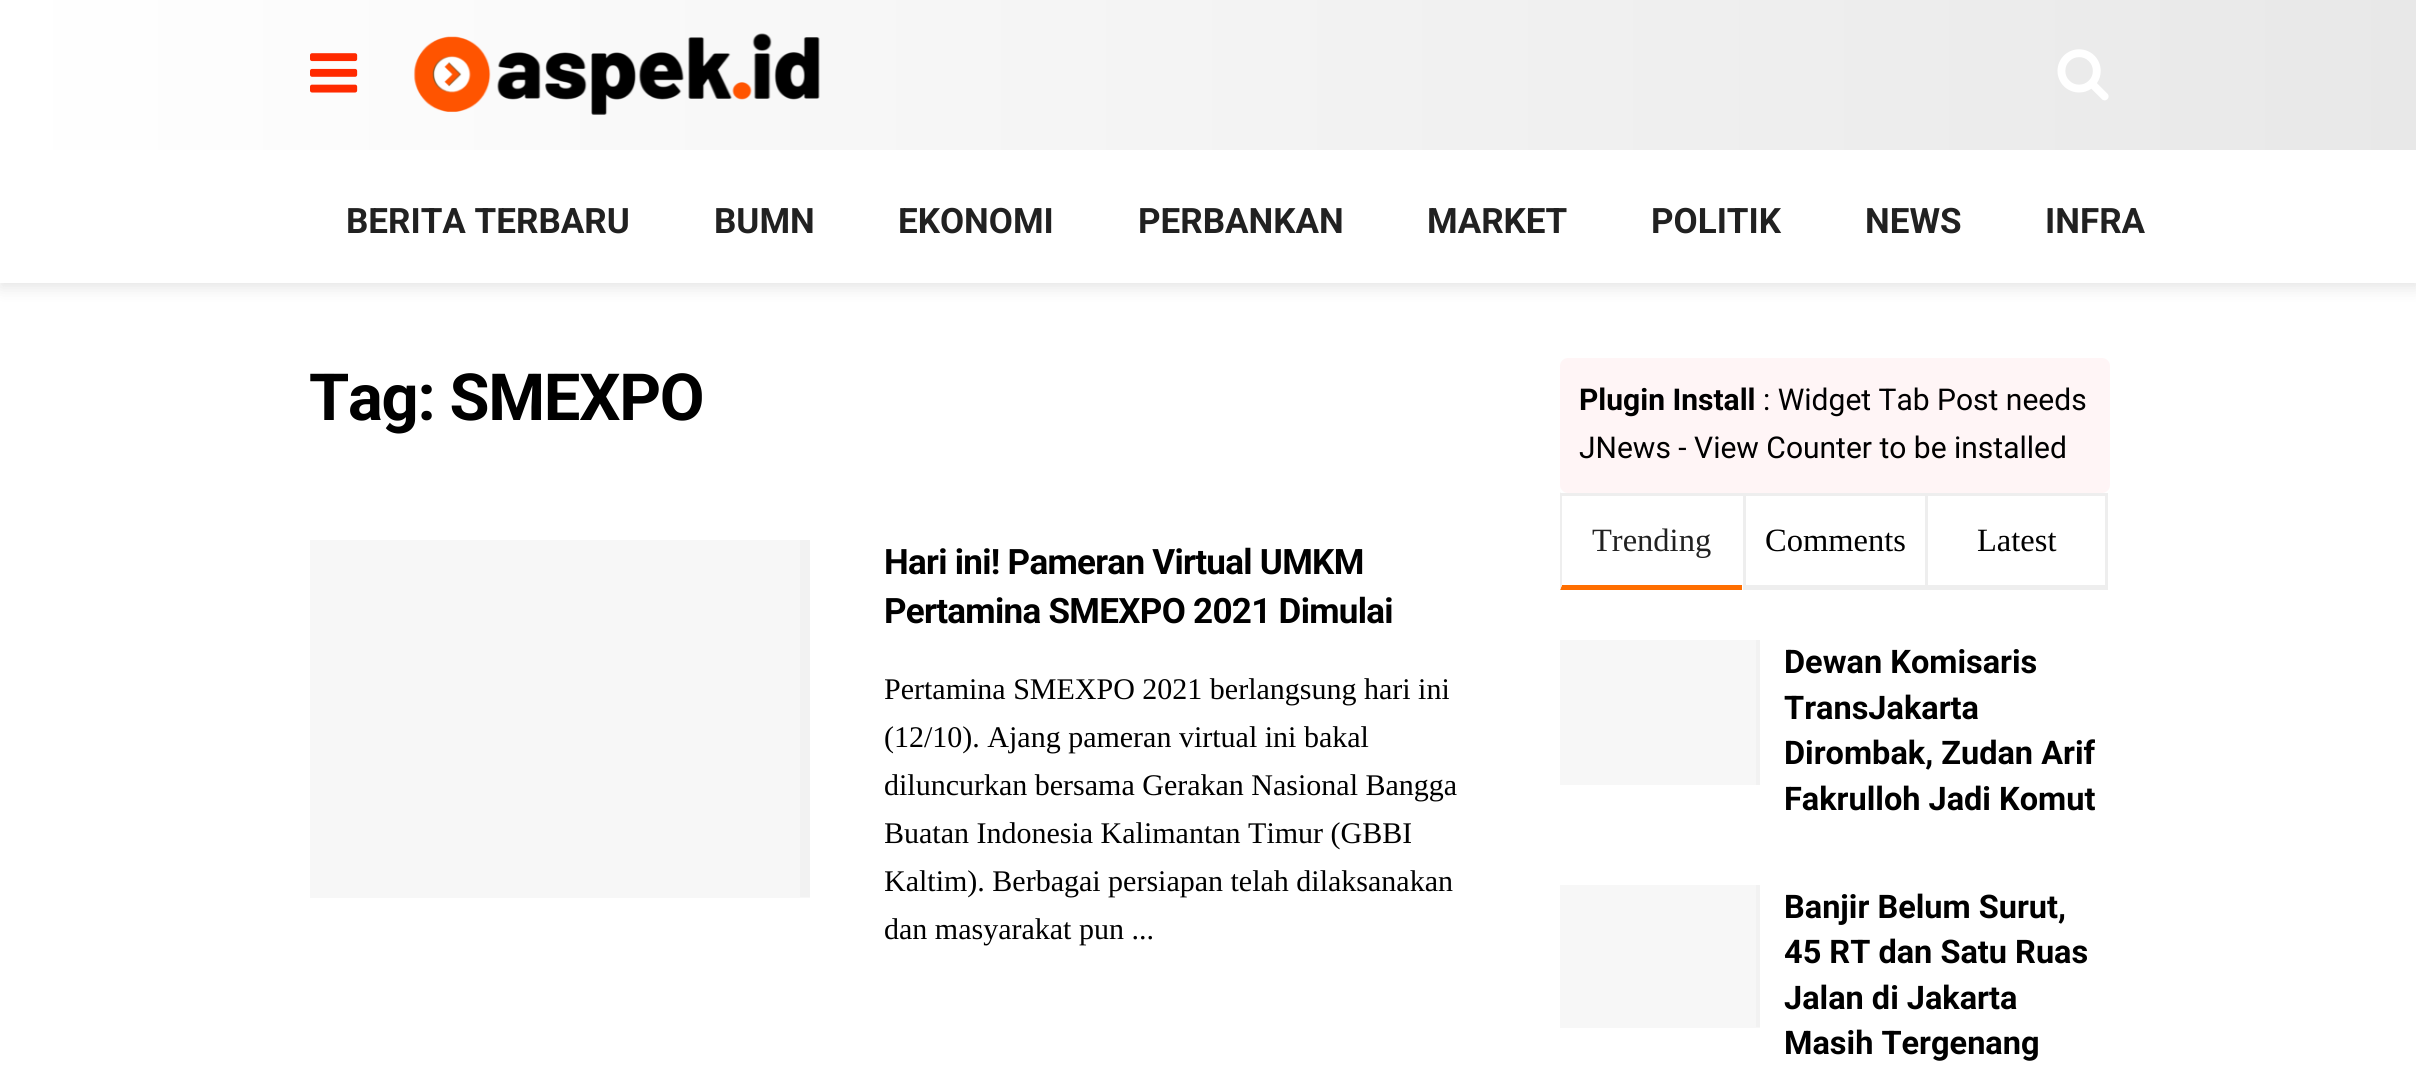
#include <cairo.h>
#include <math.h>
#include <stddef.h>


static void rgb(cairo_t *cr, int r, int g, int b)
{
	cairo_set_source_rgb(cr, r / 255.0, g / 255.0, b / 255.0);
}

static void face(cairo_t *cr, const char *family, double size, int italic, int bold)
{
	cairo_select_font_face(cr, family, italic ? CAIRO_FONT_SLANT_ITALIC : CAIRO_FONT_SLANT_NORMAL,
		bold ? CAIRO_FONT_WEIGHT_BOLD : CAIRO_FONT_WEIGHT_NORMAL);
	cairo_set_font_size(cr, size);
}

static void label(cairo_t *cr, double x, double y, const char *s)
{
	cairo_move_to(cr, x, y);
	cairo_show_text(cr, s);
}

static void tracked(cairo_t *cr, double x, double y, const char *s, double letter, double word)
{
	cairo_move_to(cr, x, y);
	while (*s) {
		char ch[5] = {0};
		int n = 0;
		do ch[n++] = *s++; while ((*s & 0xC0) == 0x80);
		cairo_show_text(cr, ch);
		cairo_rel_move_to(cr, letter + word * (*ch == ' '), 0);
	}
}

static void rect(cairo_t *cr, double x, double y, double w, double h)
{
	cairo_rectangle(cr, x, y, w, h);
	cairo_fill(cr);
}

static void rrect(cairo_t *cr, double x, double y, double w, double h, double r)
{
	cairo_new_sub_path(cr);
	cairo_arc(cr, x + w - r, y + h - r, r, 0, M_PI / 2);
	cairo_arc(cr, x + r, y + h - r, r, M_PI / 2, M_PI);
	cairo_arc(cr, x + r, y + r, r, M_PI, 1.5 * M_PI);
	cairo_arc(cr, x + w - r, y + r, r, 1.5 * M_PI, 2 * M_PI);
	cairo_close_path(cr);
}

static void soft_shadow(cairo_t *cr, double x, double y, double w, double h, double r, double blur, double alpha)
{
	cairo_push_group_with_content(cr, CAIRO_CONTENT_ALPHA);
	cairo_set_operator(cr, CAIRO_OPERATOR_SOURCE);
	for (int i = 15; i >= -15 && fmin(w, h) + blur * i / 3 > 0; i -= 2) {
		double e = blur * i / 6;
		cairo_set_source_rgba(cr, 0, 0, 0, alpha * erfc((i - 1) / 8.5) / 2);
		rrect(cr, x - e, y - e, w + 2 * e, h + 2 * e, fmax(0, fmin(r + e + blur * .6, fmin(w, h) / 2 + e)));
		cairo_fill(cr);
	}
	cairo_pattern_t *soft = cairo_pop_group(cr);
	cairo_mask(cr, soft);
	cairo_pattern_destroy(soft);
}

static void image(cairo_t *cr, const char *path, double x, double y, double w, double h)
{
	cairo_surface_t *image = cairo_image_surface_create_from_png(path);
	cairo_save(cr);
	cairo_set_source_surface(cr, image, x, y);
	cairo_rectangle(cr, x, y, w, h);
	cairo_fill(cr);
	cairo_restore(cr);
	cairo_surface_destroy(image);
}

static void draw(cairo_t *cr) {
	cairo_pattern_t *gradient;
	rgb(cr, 255, 255, 255);
	cairo_paint(cr);
	rgb(cr, 0, 0, 0);
	soft_shadow(cr, 0, 5, 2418, 283, 0, 7.5, 0.1);
	rgb(cr, 255, 255, 255);
	rect(cr, 0, 150, 2416, 133);
	gradient = cairo_pattern_create_linear(0, 75, 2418, 75);
	cairo_pattern_add_color_stop_rgba(gradient, 0, 1, 1, 1, 1);
	cairo_pattern_add_color_stop_rgba(gradient, 1, 0.91, 0.91, 0.91, 1);
	cairo_set_source(cr, gradient);
	cairo_pattern_destroy(gradient);
	rect(cr, 0, 0, 2416, 150);
	image(cr, "image0.png", 310, 53, 48, 40);
	image(cr, "image1.png", 413, 33, 407, 82);
	image(cr, "image2.png", 2057, 49, 52, 52);
	face(cr, "Roboto", 35, 0, 1);
	rgb(cr, 33, 33, 33);
	label(cr, 346, 233, "BERITA TERBARU");
	label(cr, 714, 233, "BUMN");
	label(cr, 898, 233, "EKONOMI");
	label(cr, 1138, 233, "PERBANKAN");
	label(cr, 1427, 233, "MARKET");
	label(cr, 1651, 233, "POLITIK");
	label(cr, 1865, 233, "NEWS");
	label(cr, 2045, 233, "INFRA");
	face(cr, "Roboto", 65, 0, 1);
	rgb(cr, 0, 0, 0);
	tracked(cr, 309, 420, "Tag: SMEXPO", -1.25, 0);
	rgb(cr, 247, 247, 247);
	rect(cr, 310, 540, 500, 358);
	rgb(cr, 242, 242, 242);
	rect(cr, 800, 540, 10, 357);
	face(cr, "Roboto", 35, 0, 1);
	rgb(cr, 0, 0, 0);
	tracked(cr, 884, 574, "Hari ini! Pameran Virtual UMKM", -0.7, 0);
	tracked(cr, 884, 623, "Pertamina SMEXPO 2021 Dimulai", -0.7, 0);
	cairo_save(cr);
	cairo_rectangle(cr, 885, 540, 600, 415);
	cairo_clip(cr);
	face(cr, "Liberation Serif", 30, 0, 0);
	label(cr, 884, 699, "Pertamina SMEXPO 2021 berlangsung hari ini");
	cairo_restore(cr);
	face(cr, "Liberation Serif", 30, 0, 0);
	label(cr, 884, 747, "(12/10). Ajang pameran virtual ini bakal");
	cairo_save(cr);
	cairo_rectangle(cr, 885, 540, 600, 415);
	cairo_clip(cr);
	label(cr, 884, 795, "diluncurkan bersama Gerakan Nasional Bangga");
	label(cr, 884, 843, "Buatan Indonesia Kalimantan Timur (GBBI");
	label(cr, 884, 891, "Kaltim). Berbagai persiapan telah dilaksanakan");
	label(cr, 884, 939, "dan masyarakat pun ...");
	cairo_restore(cr);
	rgb(cr, 255, 245, 246);
	rrect(cr, 1560, 358, 550, 135, 8);
	cairo_fill(cr);
	face(cr, "Roboto", 30, 0, 1);
	rgb(cr, 0, 0, 0);
	label(cr, 1579, 410, "Plugin Install");
	face(cr, "Roboto", 30, 0, 0);
	label(cr, 1763, 410, ": Widget Tab Post needs");
	label(cr, 1579, 458, "JNews - View Counter to be installed");
	rgb(cr, 238, 238, 238);
	rect(cr, 1560, 493, 548, 3);
	rgb(cr, 255, 110, 0);
	cairo_new_path(cr);
	cairo_move_to(cr, 1742, 590);
	cairo_line_to(cr, 1560, 590);
	cairo_line_to(cr, 1562, 585);
	cairo_line_to(cr, 1742, 585);
	cairo_close_path(cr);
	cairo_fill(cr);
	rgb(cr, 238, 238, 238);
	cairo_new_path(cr);
	cairo_move_to(cr, 1560, 590);
	cairo_line_to(cr, 1560, 492);
	cairo_line_to(cr, 1562, 495);
	cairo_line_to(cr, 1562, 585);
	cairo_close_path(cr);
	cairo_fill(cr);
	face(cr, "Liberation Serif", 32.5, 0, 0);
	rgb(cr, 33, 33, 33);
	label(cr, 1592, 551, "Trending");
	rgb(cr, 238, 238, 238);
	rect(cr, 1743, 585, 182, 5);
	rect(cr, 1743, 493, 3, 97);
	rgb(cr, 0, 0, 0);
	label(cr, 1765, 551, "Comments");
	rgb(cr, 238, 238, 238);
	rect(cr, 2105, 493, 3, 97);
	rect(cr, 1925, 585, 183, 5);
	rect(cr, 1925, 493, 3, 97);
	rgb(cr, 0, 0, 0);
	label(cr, 1977, 551, "Latest");
	rgb(cr, 247, 247, 247);
	rect(cr, 1560, 640, 196, 145);
	rgb(cr, 242, 242, 242);
	rect(cr, 1756, 640, 4, 145);
	face(cr, "Roboto", 32.5, 0, 1);
	rgb(cr, 0, 0, 0);
	label(cr, 1784, 673, "Dewan Komisaris");
	label(cr, 1784, 719, "TransJakarta");
	label(cr, 1784, 764, "Dirombak, Zudan Arif");
	label(cr, 1784, 810, "Fakrulloh Jadi Komut");
	rgb(cr, 247, 247, 247);
	rect(cr, 1560, 885, 200, 143);
	rgb(cr, 242, 242, 242);
	rect(cr, 1756, 885, 4, 142);
	rgb(cr, 0, 0, 0);
	label(cr, 1784, 918, "Banjir Belum Surut,");
	label(cr, 1784, 963, "45 RT dan Satu Ruas");
	label(cr, 1784, 1009, "Jalan di Jakarta");
	label(cr, 1784, 1054, "Masih Tergenang");
}

int main(void) {
	cairo_surface_t *surface = cairo_image_surface_create(CAIRO_FORMAT_RGB24, 2416, 1070);
	cairo_t *cr = cairo_create(surface);
	cairo_font_options_t *options = cairo_font_options_create();
	cairo_font_options_set_hint_metrics(options, CAIRO_HINT_METRICS_OFF);
	cairo_font_options_set_hint_style(options, CAIRO_HINT_STYLE_NONE);
	cairo_set_font_options(cr, options);
	cairo_set_miter_limit(cr, 4);
	draw(cr);
	cairo_surface_write_to_png(surface, "render.png");
	cairo_font_options_destroy(options);
	cairo_destroy(cr);
	cairo_surface_destroy(surface);
	return 0;
}
